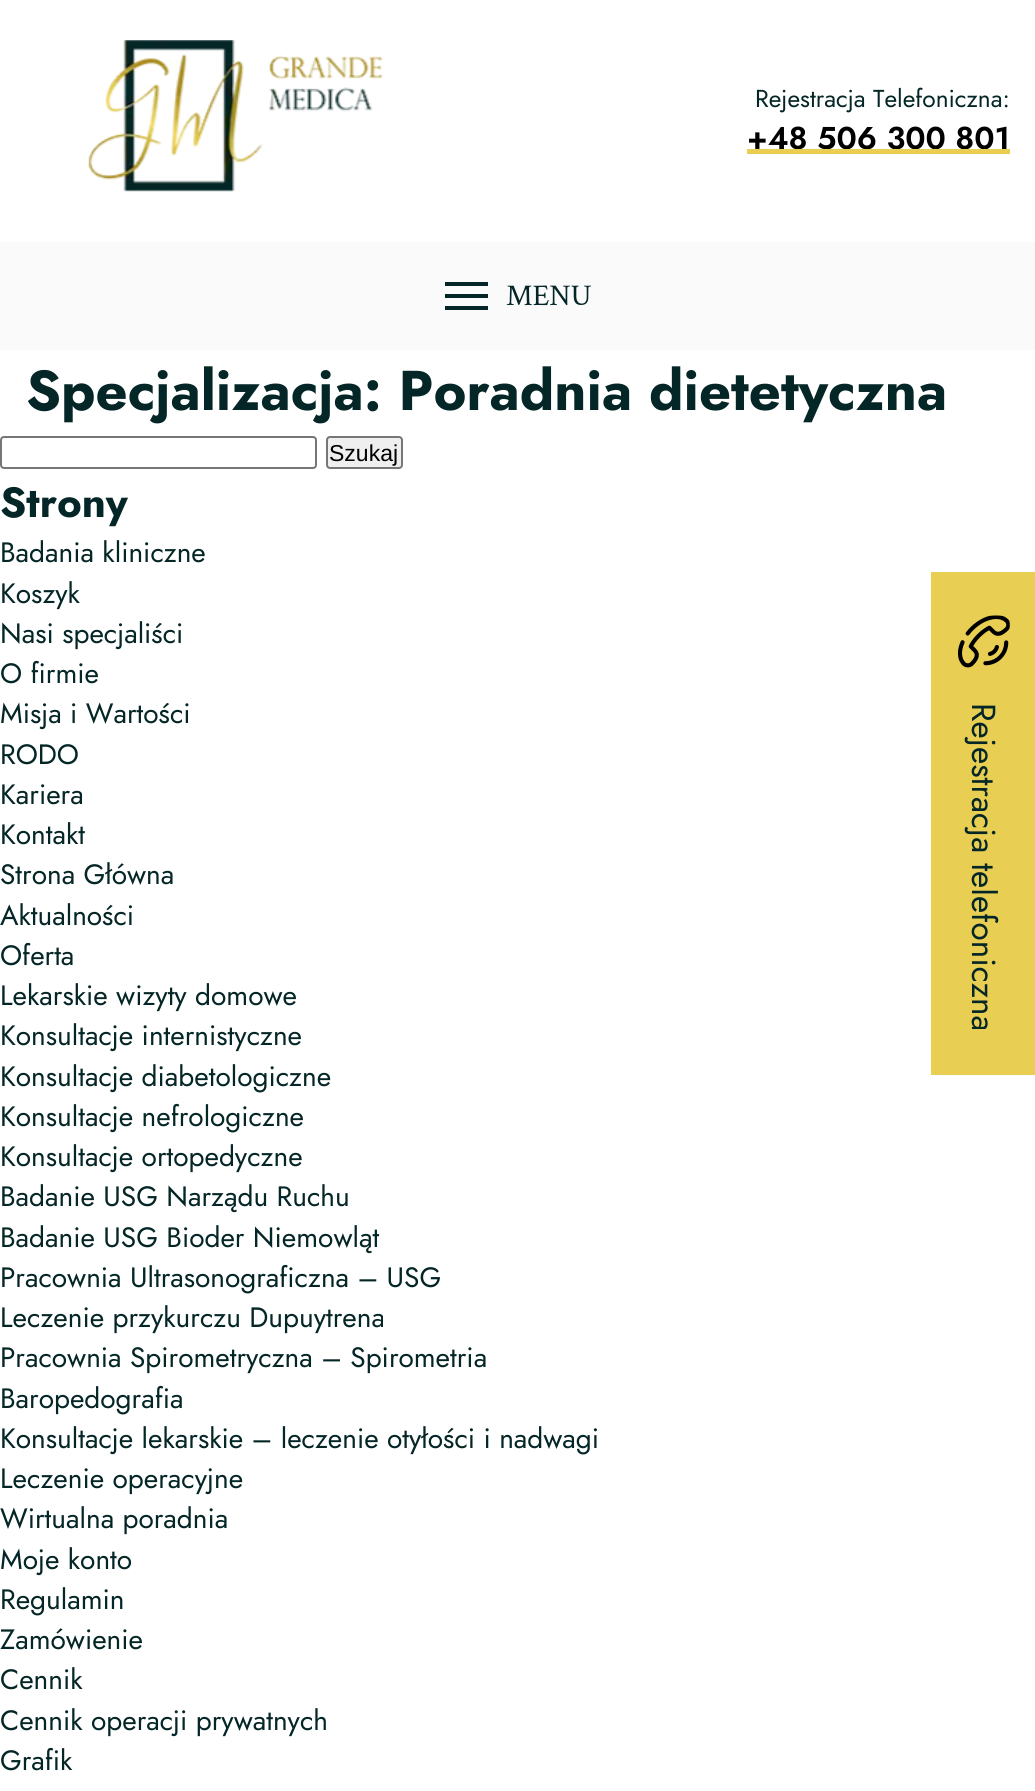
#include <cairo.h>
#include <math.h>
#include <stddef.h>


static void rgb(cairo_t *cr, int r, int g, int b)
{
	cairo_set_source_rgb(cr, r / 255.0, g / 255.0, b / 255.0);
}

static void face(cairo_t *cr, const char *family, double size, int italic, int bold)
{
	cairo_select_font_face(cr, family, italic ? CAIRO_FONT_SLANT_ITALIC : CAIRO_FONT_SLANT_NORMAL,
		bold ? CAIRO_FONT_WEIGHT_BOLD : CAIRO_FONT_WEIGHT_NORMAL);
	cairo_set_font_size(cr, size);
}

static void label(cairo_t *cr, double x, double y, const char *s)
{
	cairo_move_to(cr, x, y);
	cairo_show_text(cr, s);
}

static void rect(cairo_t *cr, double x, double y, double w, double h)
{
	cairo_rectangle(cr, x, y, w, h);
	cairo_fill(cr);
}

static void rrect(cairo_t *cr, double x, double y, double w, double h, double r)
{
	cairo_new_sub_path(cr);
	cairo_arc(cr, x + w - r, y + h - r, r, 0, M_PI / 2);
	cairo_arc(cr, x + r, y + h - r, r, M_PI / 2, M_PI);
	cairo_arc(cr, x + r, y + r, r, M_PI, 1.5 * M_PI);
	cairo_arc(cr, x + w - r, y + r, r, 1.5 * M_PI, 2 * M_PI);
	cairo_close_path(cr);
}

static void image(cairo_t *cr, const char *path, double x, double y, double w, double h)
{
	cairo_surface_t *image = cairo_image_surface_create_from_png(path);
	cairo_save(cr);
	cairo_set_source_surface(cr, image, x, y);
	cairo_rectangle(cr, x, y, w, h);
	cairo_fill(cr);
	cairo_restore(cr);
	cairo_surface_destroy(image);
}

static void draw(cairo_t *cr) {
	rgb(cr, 255, 255, 255);
	cairo_paint(cr);
	image(cr, "image0.png", 88, 40, 295, 152);
	face(cr, "Jost", 24.5, 0, 0);
	rgb(cr, 5, 38, 38);
	label(cr, 755, 107, "Rejestracja Telefoniczna:");
	face(cr, "Jost SemiBold", 31.5, 0, 0);
	rgb(cr, 0, 0, 0);
	label(cr, 747, 149, "+48 506 300 801");
	rgb(cr, 232, 206, 82);
	rect(cr, 747, 149, 263, 5);
	rgb(cr, 250, 250, 250);
	rect(cr, 0, 242, 1035, 108);
	rgb(cr, 5, 38, 38);
	rect(cr, 445, 282, 43, 4);
	rect(cr, 445, 294, 43, 4);
	rect(cr, 445, 306, 43, 4);
	face(cr, "Crimson Text", 30, 0, 0);
	label(cr, 506, 305, "MENU");
	face(cr, "Jost", 56, 0, 1);
	label(cr, 26, 410, "Specjalizacja: Poradnia dietetyczna");
	rrect(cr, 1, 437, 315, 31, 3);
	rgb(cr, 118, 118, 118);
	cairo_stroke(cr);
	rgb(cr, 239, 239, 239);
	rrect(cr, 327, 437, 75, 31, 3);
	cairo_fill_preserve(cr);
	rgb(cr, 118, 118, 118);
	cairo_stroke(cr);
	face(cr, "Liberation Sans", 23, 0, 0);
	rgb(cr, 0, 0, 0);
	label(cr, 329, 461, "Szukaj");
	face(cr, "Jost", 42, 0, 1);
	rgb(cr, 5, 38, 38);
	label(cr, 0, 517, "Strony");
	face(cr, "Jost", 28, 0, 0);
	label(cr, 0, 562, "Badania kliniczne");
	label(cr, 0, 603, "Koszyk");
	label(cr, 0, 643, "Nasi specjaliści");
	label(cr, 0, 683, "O firmie");
	label(cr, 0, 723, "Misja i Wartości");
	label(cr, 0, 764, "RODO");
	label(cr, 0, 804, "Kariera");
	label(cr, 0, 844, "Kontakt");
	label(cr, 0, 884, "Strona Główna");
	label(cr, 0, 925, "Aktualności");
	label(cr, 0, 965, "Oferta");
	label(cr, 0, 1005, "Lekarskie wizyty domowe");
	label(cr, 0, 1045, "Konsultacje internistyczne");
	label(cr, 0, 1086, "Konsultacje diabetologiczne");
	label(cr, 0, 1126, "Konsultacje nefrologiczne");
	label(cr, 0, 1166, "Konsultacje ortopedyczne");
	label(cr, 0, 1206, "Badanie USG Narządu Ruchu");
	label(cr, 0, 1247, "Badanie USG Bioder Niemowląt");
	label(cr, 0, 1287, "Pracownia Ultrasonograficzna – USG");
	label(cr, 0, 1327, "Leczenie przykurczu Dupuytrena");
	label(cr, 0, 1367, "Pracownia Spirometryczna – Spirometria");
	label(cr, 0, 1408, "Baropedografia");
	label(cr, 0, 1448, "Konsultacje lekarskie – leczenie otyłości i nadwagi");
	label(cr, 0, 1488, "Leczenie operacyjne");
	label(cr, 0, 1528, "Wirtualna poradnia");
	label(cr, 0, 1569, "Moje konto");
	label(cr, 0, 1609, "Regulamin");
	label(cr, 0, 1649, "Zamówienie");
	label(cr, 0, 1689, "Cennik");
	label(cr, 0, 1730, "Cennik operacji prywatnych");
	label(cr, 0, 1770, "Grafik");
	rgb(cr, 232, 206, 82);
	rect(cr, 931, 572, 104, 503);
	image(cr, "image1.png", 957, 615, 53, 53);
	face(cr, "Jost", 33.25, 0, 0);
	rgb(cr, 5, 38, 38);
	cairo_save(cr);
	cairo_translate(cr, 972, 703);
	cairo_rotate(cr, 90 * M_PI / 180);
	label(cr, 0, 0, "Rejestracja telefoniczna");
	cairo_restore(cr);
}

int main(void) {
	cairo_surface_t *surface = cairo_image_surface_create(CAIRO_FORMAT_RGB24, 1035, 1791);
	cairo_t *cr = cairo_create(surface);
	cairo_font_options_t *options = cairo_font_options_create();
	cairo_font_options_set_hint_metrics(options, CAIRO_HINT_METRICS_OFF);
	cairo_font_options_set_hint_style(options, CAIRO_HINT_STYLE_NONE);
	cairo_set_font_options(cr, options);
	cairo_set_miter_limit(cr, 4);
	draw(cr);
	cairo_surface_write_to_png(surface, "render.png");
	cairo_font_options_destroy(options);
	cairo_destroy(cr);
	cairo_surface_destroy(surface);
	return 0;
}
